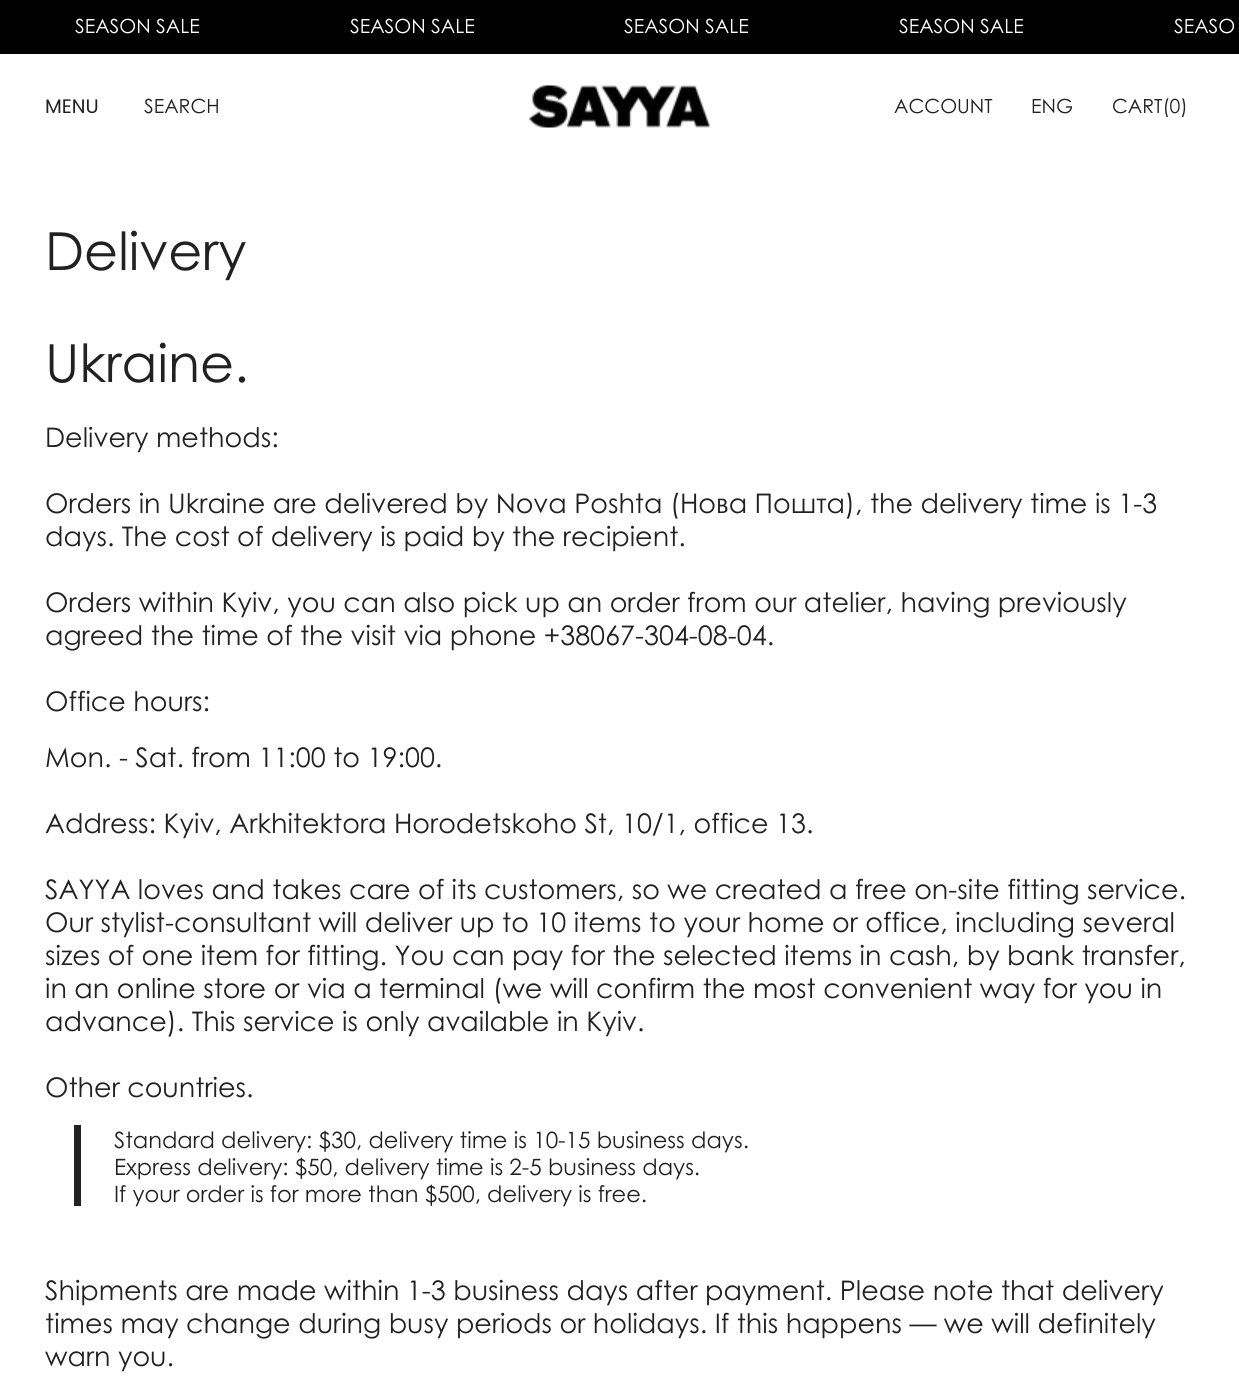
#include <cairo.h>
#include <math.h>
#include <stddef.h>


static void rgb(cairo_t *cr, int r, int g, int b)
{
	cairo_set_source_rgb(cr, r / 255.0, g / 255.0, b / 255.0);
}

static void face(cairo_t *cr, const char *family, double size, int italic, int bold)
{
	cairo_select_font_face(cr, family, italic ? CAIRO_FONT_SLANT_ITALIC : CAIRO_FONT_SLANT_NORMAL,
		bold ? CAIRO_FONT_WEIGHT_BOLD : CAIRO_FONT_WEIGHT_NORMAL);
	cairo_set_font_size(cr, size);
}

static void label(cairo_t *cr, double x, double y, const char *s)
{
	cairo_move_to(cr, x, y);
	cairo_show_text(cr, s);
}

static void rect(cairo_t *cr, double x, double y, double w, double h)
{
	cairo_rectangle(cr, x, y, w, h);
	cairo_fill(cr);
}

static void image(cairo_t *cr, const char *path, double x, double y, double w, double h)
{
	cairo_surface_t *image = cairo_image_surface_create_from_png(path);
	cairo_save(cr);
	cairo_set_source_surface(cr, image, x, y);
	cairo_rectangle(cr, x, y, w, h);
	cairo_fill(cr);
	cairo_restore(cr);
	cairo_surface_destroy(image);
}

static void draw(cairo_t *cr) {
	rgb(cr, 255, 255, 255);
	cairo_paint(cr);
	rgb(cr, 0, 0, 0);
	rect(cr, 0, 0, 1239, 54);
	face(cr, "Century Gothic", 19.5, 0, 0);
	rgb(cr, 255, 255, 255);
	label(cr, 75, 33, "SEASON SALE");
	label(cr, 350, 33, "SEASON SALE");
	label(cr, 624, 33, "SEASON SALE");
	label(cr, 899, 33, "SEASON SALE");
	label(cr, 1174, 33, "SEASO");
	face(cr, "Poppins", 19.5, 0, 0);
	rgb(cr, 33, 33, 33);
	label(cr, 45, 113, "MENU");
	face(cr, "Century Gothic", 19.5, 0, 0);
	label(cr, 144, 113, "SEARCH");
	image(cr, "image0.png", 529, 85, 181, 43);
	label(cr, 894, 113, "ACCOUNT");
	label(cr, 1031, 113, "ENG");
	label(cr, 1112, 113, "CART(0)");
	face(cr, "Century Gothic", 52.5, 0, 0);
	label(cr, 45, 270, "Delivery");
	label(cr, 45, 382, "Ukraine.");
	face(cr, "Century Gothic", 27, 0, 0);
	label(cr, 45, 447, "Delivery methods:");
	label(cr, 45, 513, "Orders in Ukraine are delivered by Nova Poshta (Нова Пошта), the delivery time is 1-3");
	label(cr, 45, 546, "days. The cost of delivery is paid by the recipient.");
	label(cr, 45, 612, "Orders within Kyiv, you can also pick up an order from our atelier, having previously");
	label(cr, 45, 645, "agreed the time of the visit via phone +38067-304-08-04.");
	label(cr, 45, 711, "Office hours:");
	label(cr, 45, 767, "Mon. - Sat. from 11:00 to 19:00.");
	label(cr, 45, 833, "Address: Kyiv, Arkhitektora Horodetskoho St, 10/1, office 13.");
	label(cr, 45, 899, "SAYYA loves and takes care of its customers, so we created a free on-site fitting service.");
	label(cr, 45, 932, "Our stylist-consultant will deliver up to 10 items to your home or office, including several");
	label(cr, 45, 965, "sizes of one item for fitting. You can pay for the selected items in cash, by bank transfer,");
	label(cr, 45, 998, "in an online store or via a terminal (we will confirm the most convenient way for you in");
	label(cr, 45, 1031, "advance). This service is only available in Kyiv.");
	label(cr, 45, 1097, "Other countries.");
	rect(cr, 74, 1125, 7, 81);
	face(cr, "Century Gothic", 22.5, 0, 0);
	label(cr, 114, 1148, "Standard delivery: $30, delivery time is 10-15 business days.");
	label(cr, 114, 1175, "Express delivery: $50, delivery time is 2-5 business days.");
	label(cr, 114, 1202, "If your order is for more than $500, delivery is free.");
	face(cr, "Century Gothic", 27, 0, 0);
	label(cr, 45, 1300, "Shipments are made within 1-3 business days after payment. Please note that delivery");
	label(cr, 45, 1333, "times may change during busy periods or holidays. If this happens — we will definitely");
	label(cr, 45, 1366, "warn you.");
}

int main(void) {
	cairo_surface_t *surface = cairo_image_surface_create(CAIRO_FORMAT_RGB24, 1239, 1400);
	cairo_t *cr = cairo_create(surface);
	cairo_font_options_t *options = cairo_font_options_create();
	cairo_font_options_set_hint_metrics(options, CAIRO_HINT_METRICS_OFF);
	cairo_font_options_set_hint_style(options, CAIRO_HINT_STYLE_NONE);
	cairo_set_font_options(cr, options);
	cairo_set_miter_limit(cr, 4);
	draw(cr);
	cairo_surface_write_to_png(surface, "render.png");
	cairo_font_options_destroy(options);
	cairo_destroy(cr);
	cairo_surface_destroy(surface);
	return 0;
}
